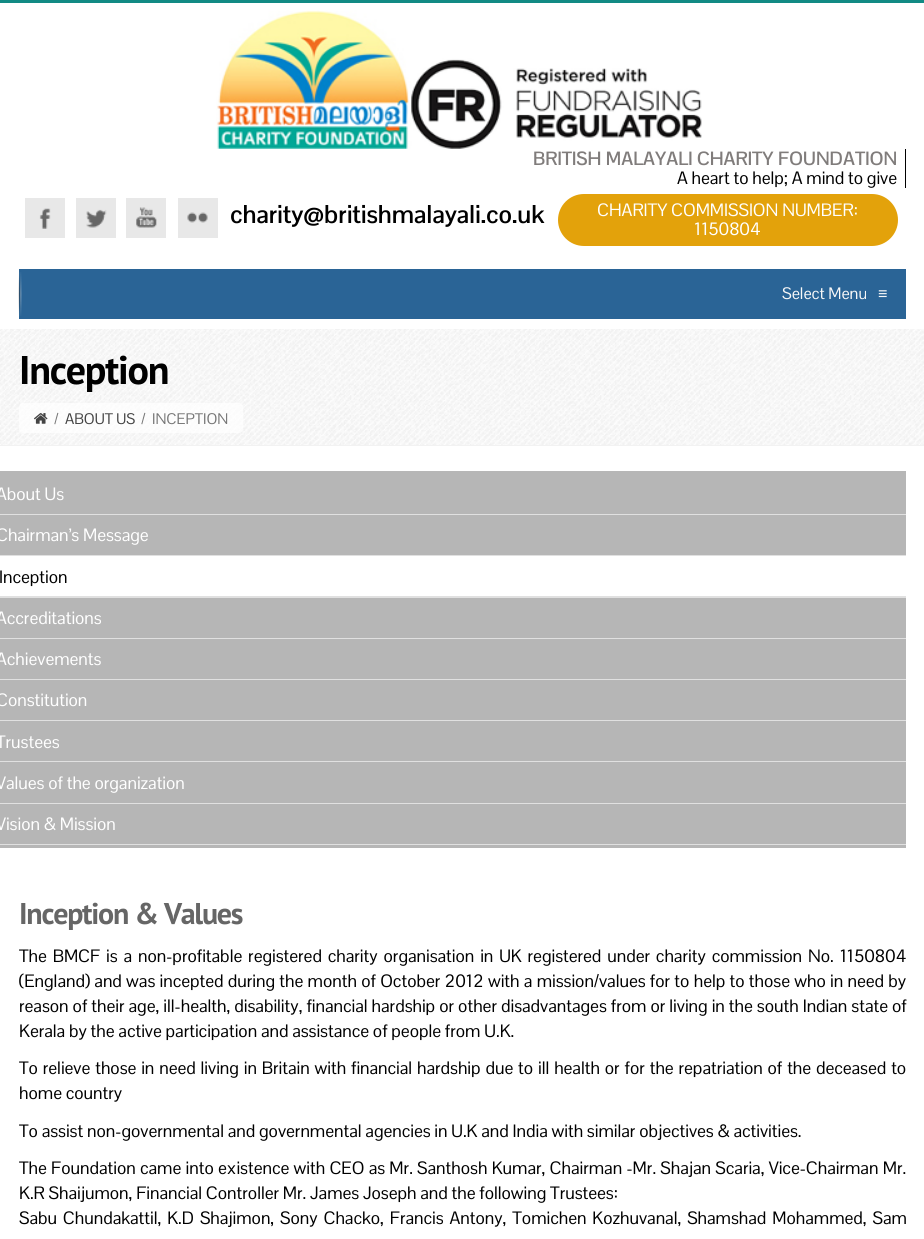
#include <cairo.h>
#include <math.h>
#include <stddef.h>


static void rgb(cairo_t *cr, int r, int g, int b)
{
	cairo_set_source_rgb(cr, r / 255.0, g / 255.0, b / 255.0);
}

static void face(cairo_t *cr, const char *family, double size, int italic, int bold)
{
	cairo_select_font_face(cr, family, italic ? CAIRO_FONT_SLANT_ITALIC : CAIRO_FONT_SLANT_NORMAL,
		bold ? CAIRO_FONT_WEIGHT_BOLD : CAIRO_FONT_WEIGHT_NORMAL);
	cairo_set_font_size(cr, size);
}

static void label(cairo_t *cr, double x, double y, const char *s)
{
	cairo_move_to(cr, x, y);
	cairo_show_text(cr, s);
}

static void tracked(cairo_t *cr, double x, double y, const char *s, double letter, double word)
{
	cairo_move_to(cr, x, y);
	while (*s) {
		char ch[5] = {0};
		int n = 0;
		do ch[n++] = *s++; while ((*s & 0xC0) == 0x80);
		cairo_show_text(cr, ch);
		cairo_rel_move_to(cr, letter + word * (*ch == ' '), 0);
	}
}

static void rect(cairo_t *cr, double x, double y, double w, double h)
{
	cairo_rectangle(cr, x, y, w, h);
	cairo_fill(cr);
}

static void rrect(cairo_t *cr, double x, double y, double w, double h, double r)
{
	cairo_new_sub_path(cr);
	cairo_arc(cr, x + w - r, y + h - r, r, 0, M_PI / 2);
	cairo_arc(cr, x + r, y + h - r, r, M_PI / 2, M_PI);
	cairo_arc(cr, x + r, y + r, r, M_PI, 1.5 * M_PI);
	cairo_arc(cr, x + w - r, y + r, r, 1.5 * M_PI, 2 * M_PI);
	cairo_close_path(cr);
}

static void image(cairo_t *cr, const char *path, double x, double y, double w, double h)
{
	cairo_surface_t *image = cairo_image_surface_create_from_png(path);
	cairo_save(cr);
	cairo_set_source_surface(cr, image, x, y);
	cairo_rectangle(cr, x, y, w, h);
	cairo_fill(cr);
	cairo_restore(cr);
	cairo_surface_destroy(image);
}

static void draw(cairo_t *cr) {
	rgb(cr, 255, 255, 255);
	cairo_paint(cr);
	rgb(cr, 17, 138, 132);
	rect(cr, 0, 0, 924, 3);
	image(cr, "image0.png", 216, 10, 486, 139);
	rgb(cr, 232, 232, 232);
	rect(cr, 25, 198, 40, 40);
	image(cr, "image1.png", 39, 208, 12, 21);
	rect(cr, 76, 198, 40, 40);
	image(cr, "image2.png", 86, 209, 21, 19);
	rect(cr, 126, 198, 40, 40);
	image(cr, "image3.png", 136, 207, 21, 21);
	rect(cr, 178, 198, 40, 40);
	image(cr, "image4.png", 187, 212, 21, 11);
	face(cr, "Pontano Sans", 25, 0, 1);
	rgb(cr, 0, 0, 0);
	label(cr, 230, 223, "charity@britishmalayali.co.uk");
	rect(cr, 905, 149, 1, 39);
	face(cr, "Pontano Sans", 18.75, 0, 1);
	rgb(cr, 128, 124, 123);
	label(cr, 533, 165, "BRITISH MALAYALI CHARITY FOUNDATION");
	face(cr, "Pontano Sans", 17.5, 0, 0);
	rgb(cr, 0, 0, 0);
	label(cr, 677, 184, "A heart to help; A mind to give");
	rgb(cr, 227, 162, 11);
	rrect(cr, 558, 194, 340, 52, 26);
	cairo_fill(cr);
	rgb(cr, 255, 255, 255);
	label(cr, 597, 216, "CHARITY COMMISSION NUMBER:");
	label(cr, 694, 235, "1150804");
	rgb(cr, 42, 100, 150);
	rect(cr, 19, 269, 887, 50);
	image(cr, "image5.png", 18, 272, 4, 44);
	face(cr, "Pontano Sans", 16.25, 0, 0);
	rgb(cr, 248, 248, 248);
	label(cr, 782, 299, "Select Menu");
	face(cr, "Liberation Sans", 16.25, 0, 0);
	label(cr, 878, 299, "≡");
	image(cr, "image6.png", 0, 329, 924, 116);
	rgb(cr, 242, 242, 242);
	rect(cr, 0, 445, 924, 1);
	face(cr, "PT Sans", 40, 0, 1);
	rgb(cr, 0, 0, 0);
	tracked(cr, 19, 384, "Inception", -1.25, 0);
	cairo_set_source_rgba(cr, 1, 1, 1, 0.7);
	rrect(cr, 19, 403, 224, 30, 4);
	cairo_fill(cr);
	image(cr, "image7.png", 34, 413, 14, 11);
	face(cr, "Pontano Sans", 15, 0, 0);
	rgb(cr, 119, 119, 119);
	label(cr, 54, 424, "/");
	rgb(cr, 68, 68, 68);
	label(cr, 65, 424, "ABOUT US");
	rgb(cr, 119, 119, 119);
	label(cr, 141, 424, "/");
	label(cr, 152, 424, "INCEPTION");
	rgb(cr, 182, 182, 182);
	rect(cr, 0, 471, 906, 377);
	rgb(cr, 224, 224, 224);
	rect(cr, 0, 514, 906, 1);
	face(cr, "Pontano Sans", 17.5, 0, 0);
	rgb(cr, 255, 255, 255);
	label(cr, -4, 500, "About Us");
	rgb(cr, 224, 224, 224);
	rect(cr, 0, 555, 906, 1);
	rgb(cr, 255, 255, 255);
	label(cr, -4, 541, "Chairman’s Message");
	rect(cr, 0, 556, 906, 40);
	rgb(cr, 224, 224, 224);
	cairo_new_path(cr);
	cairo_move_to(cr, 906, 598);
	cairo_line_to(cr, -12, 598);
	cairo_line_to(cr, -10, 596);
	cairo_line_to(cr, 906, 596);
	cairo_close_path(cr);
	cairo_fill(cr);
	rgb(cr, 0, 0, 0);
	label(cr, -1, 583, "Inception");
	rgb(cr, 224, 224, 224);
	rect(cr, 0, 638, 906, 1);
	rgb(cr, 255, 255, 255);
	label(cr, -4, 624, "Accreditations");
	rgb(cr, 224, 224, 224);
	rect(cr, 0, 679, 906, 1);
	rgb(cr, 255, 255, 255);
	label(cr, -4, 665, "Achievements");
	rgb(cr, 224, 224, 224);
	rect(cr, 0, 720, 906, 1);
	rgb(cr, 255, 255, 255);
	label(cr, -4, 706, "Constitution");
	rgb(cr, 224, 224, 224);
	rect(cr, 0, 761, 906, 1);
	rgb(cr, 255, 255, 255);
	label(cr, -4, 748, "Trustees");
	rgb(cr, 224, 224, 224);
	rect(cr, 0, 803, 906, 1);
	rgb(cr, 255, 255, 255);
	label(cr, -4, 789, "Values of the organization");
	rgb(cr, 224, 224, 224);
	rect(cr, 0, 844, 906, 1);
	rgb(cr, 255, 255, 255);
	label(cr, -4, 830, "Vision & Mission");
	face(cr, "PT Sans", 30, 0, 1);
	rgb(cr, 102, 102, 102);
	tracked(cr, 19, 924, "Inception & Values", -1.25, 0);
	face(cr, "Pontano Sans", 17.5, 0, 0);
	rgb(cr, 0, 0, 0);
	tracked(cr, 19, 962, "The BMCF is a non-profitable registered charity organisation in UK registered under charity commission No. 1150804", 0, 2.1);
	tracked(cr, 19, 987, "(England) and was incepted during the month of October 2012 with a mission/values for to help to those who in need by", 0, 0.5);
	tracked(cr, 19, 1012, "reason of their age, ill-health, disability, financial hardship or other disadvantages from or living in the south Indian state of", 0, 0.25);
	label(cr, 19, 1037, "Kerala by the active participation and assistance of people from U.K.");
	tracked(cr, 19, 1074, "To relieve those in need living in Britain with financial hardship due to ill health or for the repatriation of the deceased to", 0, 1.1);
	label(cr, 19, 1099, "home country");
	label(cr, 19, 1137, "To assist non-governmental and governmental agencies in U.K and India with similar objectives & activities.");
	tracked(cr, 19, 1174, "The Foundation came into existence with CEO as Mr. Santhosh Kumar, Chairman -Mr. Shajan Scaria, Vice-Chairman Mr.", 0, 0.5);
	label(cr, 19, 1199, "K.R Shaijumon, Financial Controller Mr. James Joseph and the following Trustees:");
	tracked(cr, 19, 1224, "Sabu Chundakattil, K.D Shajimon, Sony Chacko, Francis Antony, Tomichen Kozhuvanal, Shamshad Mohammed, Sam", 0, 2.1);
}

int main(void) {
	cairo_surface_t *surface = cairo_image_surface_create(CAIRO_FORMAT_RGB24, 924, 1239);
	cairo_t *cr = cairo_create(surface);
	cairo_font_options_t *options = cairo_font_options_create();
	cairo_font_options_set_hint_metrics(options, CAIRO_HINT_METRICS_OFF);
	cairo_font_options_set_hint_style(options, CAIRO_HINT_STYLE_NONE);
	cairo_set_font_options(cr, options);
	cairo_set_miter_limit(cr, 4);
	draw(cr);
	cairo_surface_write_to_png(surface, "render.png");
	cairo_font_options_destroy(options);
	cairo_destroy(cr);
	cairo_surface_destroy(surface);
	return 0;
}
